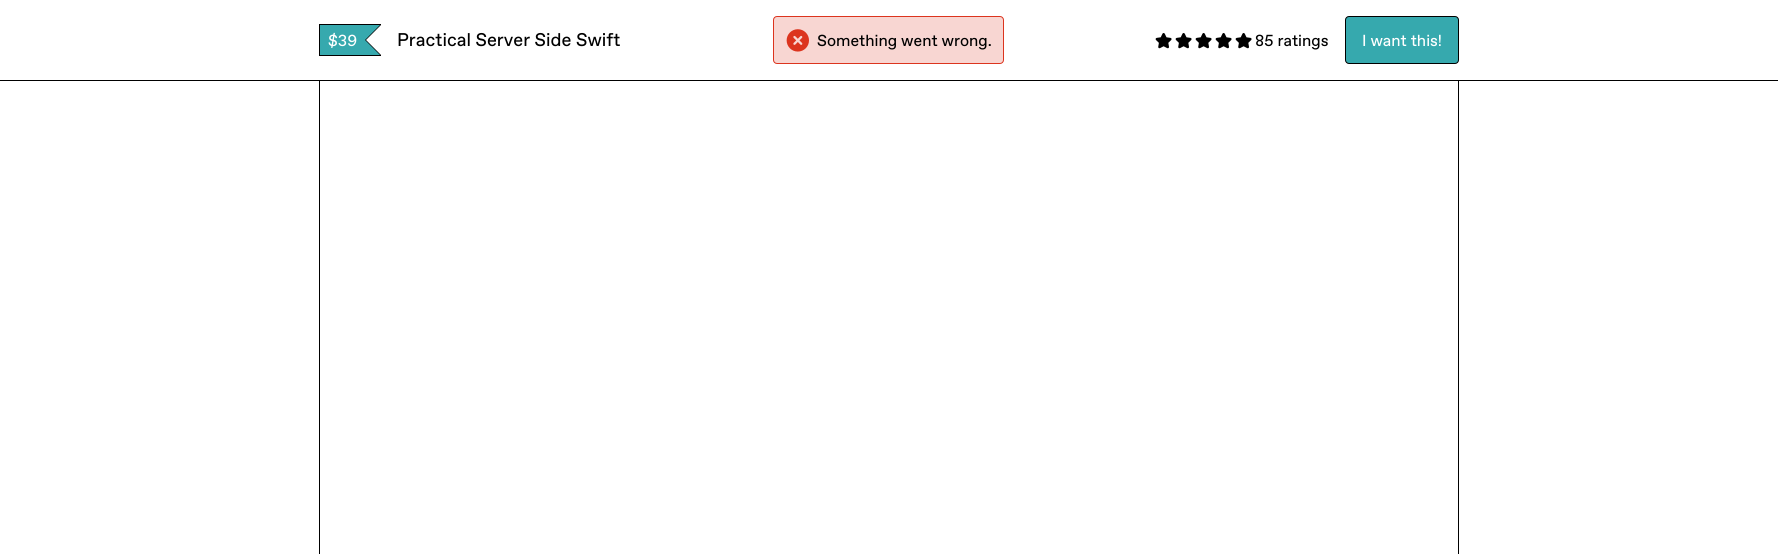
#include <cairo.h>
#include <math.h>
#include <stddef.h>


static void rgb(cairo_t *cr, int r, int g, int b)
{
	cairo_set_source_rgb(cr, r / 255.0, g / 255.0, b / 255.0);
}

static void face(cairo_t *cr, const char *family, double size, int italic, int bold)
{
	cairo_select_font_face(cr, family, italic ? CAIRO_FONT_SLANT_ITALIC : CAIRO_FONT_SLANT_NORMAL,
		bold ? CAIRO_FONT_WEIGHT_BOLD : CAIRO_FONT_WEIGHT_NORMAL);
	cairo_set_font_size(cr, size);
}

static void label(cairo_t *cr, double x, double y, const char *s)
{
	cairo_move_to(cr, x, y);
	cairo_show_text(cr, s);
}

static void rect(cairo_t *cr, double x, double y, double w, double h)
{
	cairo_rectangle(cr, x, y, w, h);
	cairo_fill(cr);
}

static void rrect(cairo_t *cr, double x, double y, double w, double h, double r)
{
	cairo_new_sub_path(cr);
	cairo_arc(cr, x + w - r, y + h - r, r, 0, M_PI / 2);
	cairo_arc(cr, x + r, y + h - r, r, M_PI / 2, M_PI);
	cairo_arc(cr, x + r, y + r, r, M_PI, 1.5 * M_PI);
	cairo_arc(cr, x + w - r, y + r, r, 1.5 * M_PI, 2 * M_PI);
	cairo_close_path(cr);
}

static void image(cairo_t *cr, const char *path, double x, double y, double w, double h)
{
	cairo_surface_t *image = cairo_image_surface_create_from_png(path);
	cairo_save(cr);
	cairo_set_source_surface(cr, image, x, y);
	cairo_rectangle(cr, x, y, w, h);
	cairo_fill(cr);
	cairo_restore(cr);
	cairo_surface_destroy(image);
}

static void draw(cairo_t *cr) {
	rgb(cr, 255, 255, 255);
	cairo_paint(cr);
	cairo_rectangle(cr, 319.5, 64.5, 1139, 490);
	rgb(cr, 0, 0, 0);
	cairo_set_line_width(cr, 1);
	cairo_stroke(cr);
	rect(cr, 0, 80, 1778, 1);
	rgb(cr, 255, 255, 255);
	rect(cr, 319, 64, 1140, 16);
	rgb(cr, 0, 0, 0);
	rect(cr, 319, 24, 62, 1);
	rect(cr, 319, 55, 62, 1);
	rect(cr, 319, 24, 1, 32);
	rgb(cr, 54, 169, 174);
	rect(cr, 320, 25, 45, 30);
	rgb(cr, 0, 0, 0);
	cairo_new_path(cr);
	cairo_move_to(cr, 365, 25);
	cairo_line_to(cr, 381, 25);
	cairo_line_to(cr, 366, 40);
	cairo_close_path(cr);
	cairo_move_to(cr, 381, 55);
	cairo_line_to(cr, 365, 55);
	cairo_line_to(cr, 366, 40);
	cairo_close_path(cr);
	cairo_fill(cr);
	rect(cr, 365, 39, 1, 2);
	rgb(cr, 54, 169, 174);
	cairo_new_path(cr);
	cairo_move_to(cr, 364, 25);
	cairo_line_to(cr, 380, 25);
	cairo_line_to(cr, 365, 40);
	cairo_close_path(cr);
	cairo_move_to(cr, 380, 55);
	cairo_line_to(cr, 364, 55);
	cairo_line_to(cr, 365, 40);
	cairo_close_path(cr);
	cairo_fill(cr);
	face(cr, "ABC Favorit", 16, 0, 0);
	rgb(cr, 255, 255, 255);
	label(cr, 328, 46, "$39");
	face(cr, "ABC Favorit", 18.4, 0, 0);
	rgb(cr, 0, 0, 0);
	label(cr, 397, 46, "Practical Server Side Swift");
	image(cr, "image0.png", 1155, 33, 17, 16);
	image(cr, "image0.png", 1175, 33, 17, 16);
	image(cr, "image0.png", 1195, 33, 17, 16);
	image(cr, "image0.png", 1215, 33, 17, 16);
	image(cr, "image0.png", 1235, 33, 17, 16);
	face(cr, "ABC Favorit", 16, 0, 0);
	label(cr, 1255, 46, "85 ratings");
	rgb(cr, 54, 169, 174);
	rrect(cr, 1345.5, 16.5, 113, 47, 3.5);
	cairo_fill_preserve(cr);
	rgb(cr, 0, 0, 0);
	cairo_stroke(cr);
	rgb(cr, 255, 255, 255);
	label(cr, 1362, 46, "I want this!");
	rgb(cr, 248, 214, 210);
	rrect(cr, 773.5, 16.5, 230, 47, 3.5);
	cairo_fill_preserve(cr);
	rgb(cr, 220, 52, 30);
	cairo_stroke(cr);
	image(cr, "image1.png", 786, 29, 23, 23);
	rgb(cr, 0, 0, 0);
	label(cr, 817, 46, "Something went wrong.");
}

int main(void) {
	cairo_surface_t *surface = cairo_image_surface_create(CAIRO_FORMAT_RGB24, 1778, 554);
	cairo_t *cr = cairo_create(surface);
	cairo_font_options_t *options = cairo_font_options_create();
	cairo_font_options_set_hint_metrics(options, CAIRO_HINT_METRICS_OFF);
	cairo_font_options_set_hint_style(options, CAIRO_HINT_STYLE_NONE);
	cairo_set_font_options(cr, options);
	cairo_set_miter_limit(cr, 4);
	draw(cr);
	cairo_surface_write_to_png(surface, "render.png");
	cairo_font_options_destroy(options);
	cairo_destroy(cr);
	cairo_surface_destroy(surface);
	return 0;
}
